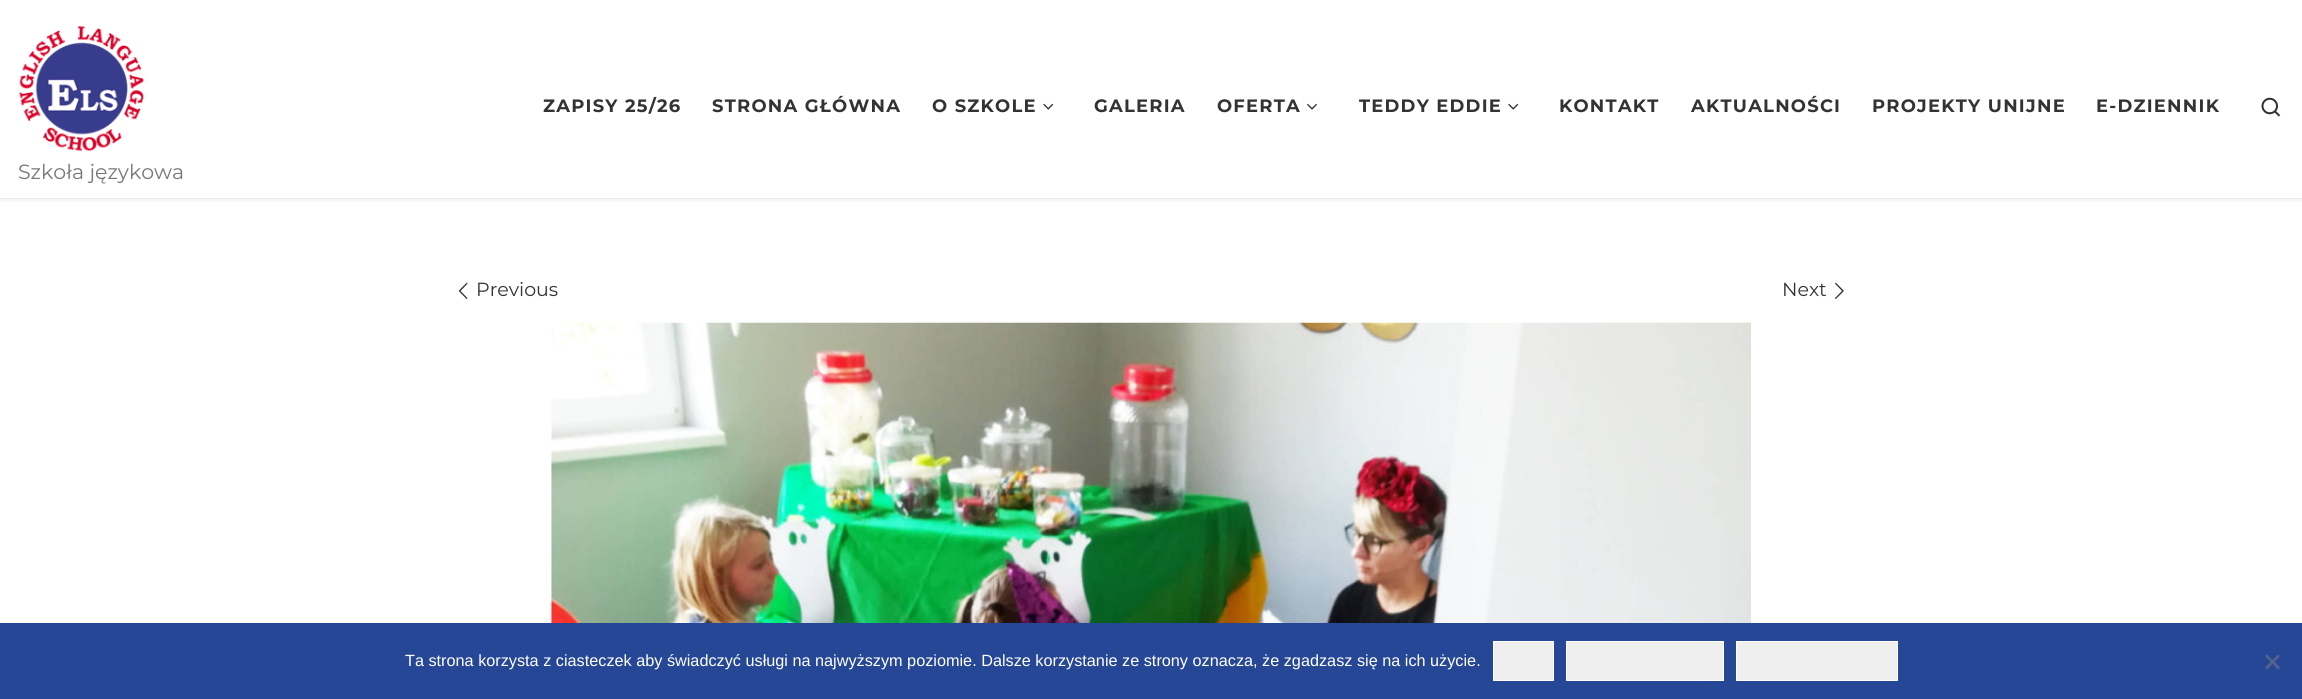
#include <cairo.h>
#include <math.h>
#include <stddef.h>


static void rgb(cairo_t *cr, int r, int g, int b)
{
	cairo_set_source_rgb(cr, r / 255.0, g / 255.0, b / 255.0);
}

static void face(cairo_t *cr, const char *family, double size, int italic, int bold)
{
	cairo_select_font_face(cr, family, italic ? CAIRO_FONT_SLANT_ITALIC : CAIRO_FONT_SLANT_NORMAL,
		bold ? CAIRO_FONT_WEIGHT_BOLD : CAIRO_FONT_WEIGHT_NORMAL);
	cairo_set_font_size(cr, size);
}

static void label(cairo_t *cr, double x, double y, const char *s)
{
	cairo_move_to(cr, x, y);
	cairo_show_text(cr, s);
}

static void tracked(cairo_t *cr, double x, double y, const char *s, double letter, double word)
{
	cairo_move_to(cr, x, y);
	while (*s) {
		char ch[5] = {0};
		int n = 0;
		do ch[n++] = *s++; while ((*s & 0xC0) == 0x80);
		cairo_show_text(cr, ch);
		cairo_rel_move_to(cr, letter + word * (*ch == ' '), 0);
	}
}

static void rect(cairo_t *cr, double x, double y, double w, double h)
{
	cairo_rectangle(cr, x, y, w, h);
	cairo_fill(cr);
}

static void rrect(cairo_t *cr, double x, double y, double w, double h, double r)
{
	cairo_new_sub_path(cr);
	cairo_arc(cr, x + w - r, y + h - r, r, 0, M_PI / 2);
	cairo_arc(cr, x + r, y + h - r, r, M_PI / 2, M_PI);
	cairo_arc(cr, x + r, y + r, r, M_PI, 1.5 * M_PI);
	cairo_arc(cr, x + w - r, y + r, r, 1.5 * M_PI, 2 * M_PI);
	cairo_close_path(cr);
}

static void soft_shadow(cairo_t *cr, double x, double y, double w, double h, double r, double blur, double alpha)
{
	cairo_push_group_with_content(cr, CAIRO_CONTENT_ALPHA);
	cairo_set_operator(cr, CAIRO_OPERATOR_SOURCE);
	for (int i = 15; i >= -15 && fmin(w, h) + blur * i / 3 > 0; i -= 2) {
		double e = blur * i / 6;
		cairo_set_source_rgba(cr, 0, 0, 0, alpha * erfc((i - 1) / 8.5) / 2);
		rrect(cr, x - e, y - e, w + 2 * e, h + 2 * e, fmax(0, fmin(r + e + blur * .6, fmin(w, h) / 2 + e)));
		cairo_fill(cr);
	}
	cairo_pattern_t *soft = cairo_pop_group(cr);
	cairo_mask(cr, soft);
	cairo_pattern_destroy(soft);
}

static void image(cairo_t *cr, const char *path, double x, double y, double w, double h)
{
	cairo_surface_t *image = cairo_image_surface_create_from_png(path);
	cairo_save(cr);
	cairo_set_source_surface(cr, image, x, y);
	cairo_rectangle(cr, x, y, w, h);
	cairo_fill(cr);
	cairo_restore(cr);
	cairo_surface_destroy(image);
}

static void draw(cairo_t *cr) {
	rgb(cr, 255, 255, 255);
	cairo_paint(cr);
	rgb(cr, 102, 102, 102);
	soft_shadow(cr, 0, 3, 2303, 198, 0, 1, 0.08);
	rgb(cr, 255, 255, 255);
	rect(cr, 0, 2, 2302, 196);
	rgb(cr, 236, 236, 236);
	rect(cr, 0, 198, 2302, 1);
	face(cr, "Montserrat", 17.9, 0, 1);
	rgb(cr, 51, 51, 51);
	tracked(cr, 543, 112, "ZAPISY 25/26", 1.25, 0);
	tracked(cr, 712, 112, "STRONA GŁÓWNA", 1.25, 0);
	tracked(cr, 932, 112, "O SZKOLE", 1.25, 0);
	image(cr, "image0.png", 1043, 103, 11, 7);
	tracked(cr, 1094, 112, "GALERIA", 1.25, 0);
	tracked(cr, 1217, 112, "OFERTA", 1.25, 0);
	image(cr, "image1.png", 1307, 103, 10, 7);
	tracked(cr, 1359, 112, "TEDDY EDDIE", 1.25, 0);
	image(cr, "image0.png", 1508, 103, 11, 7);
	tracked(cr, 1559, 112, "KONTAKT", 1.25, 0);
	tracked(cr, 1691, 112, "AKTUALNOŚCI", 1.25, 0);
	tracked(cr, 1872, 112, "PROJEKTY UNIJNE", 1.25, 0);
	tracked(cr, 2096, 112, "E-DZIENNIK", 1.25, 0);
	image(cr, "image2.png", 2261, 97, 20, 20);
	image(cr, "image3.png", 19, 26, 125, 126);
	face(cr, "Montserrat", 20.5, 0, 0);
	rgb(cr, 119, 119, 119);
	label(cr, 18, 179, "Szkoła językowa");
	image(cr, "image4.png", 458, 282, 10, 17);
	face(cr, "Montserrat", 19, 0, 0);
	rgb(cr, 51, 51, 51);
	label(cr, 476, 296, "Previous");
	label(cr, 1782, 296, "Next");
	image(cr, "image5.png", 1835, 282, 9, 17);
	image(cr, "image6.png", 551, 322, 1201, 301);
	rgb(cr, 38, 71, 150);
	rect(cr, 0, 623, 2302, 76);
	face(cr, "Liberation Sans", 16.25, 0, 0);
	rgb(cr, 255, 255, 255);
	label(cr, 405, 666, "Ta strona korzysta z ciasteczek aby świadczyć usługi na najwyższym poziomie. Dalsze korzystanie ze strony oznacza, że zgadzasz się na ich użycie.");
	rgb(cr, 239, 239, 239);
	cairo_rectangle(cr, 1493.5, 641.5, 60, 39);
	cairo_fill_preserve(cr);
	rgb(cr, 255, 255, 255);
	cairo_set_line_width(cr, 1);
	cairo_stroke(cr);
	rgb(cr, 239, 239, 239);
	cairo_rectangle(cr, 1566.5, 641.5, 157, 39);
	cairo_fill_preserve(cr);
	rgb(cr, 255, 255, 255);
	cairo_stroke(cr);
	rgb(cr, 239, 239, 239);
	cairo_rectangle(cr, 1736.5, 641.5, 161, 39);
	cairo_fill_preserve(cr);
	rgb(cr, 255, 255, 255);
	cairo_stroke(cr);
	rgb(cr, 83, 100, 139);
	cairo_new_path(cr);
	cairo_move_to(cr, 2278, 654.5);
	cairo_line_to(cr, 2280, 656);
	cairo_line_to(cr, 2267, 669.5);
	cairo_line_to(cr, 2265, 667.5);
	cairo_close_path(cr);
	cairo_fill(cr);
	cairo_new_path(cr);
	cairo_move_to(cr, 2265, 656);
	cairo_line_to(cr, 2267, 654.5);
	cairo_line_to(cr, 2280, 667.5);
	cairo_line_to(cr, 2278, 669.5);
	cairo_close_path(cr);
	cairo_fill(cr);
}

int main(void) {
	cairo_surface_t *surface = cairo_image_surface_create(CAIRO_FORMAT_RGB24, 2302, 699);
	cairo_t *cr = cairo_create(surface);
	cairo_font_options_t *options = cairo_font_options_create();
	cairo_font_options_set_hint_metrics(options, CAIRO_HINT_METRICS_OFF);
	cairo_font_options_set_hint_style(options, CAIRO_HINT_STYLE_NONE);
	cairo_set_font_options(cr, options);
	cairo_set_miter_limit(cr, 4);
	draw(cr);
	cairo_surface_write_to_png(surface, "render.png");
	cairo_font_options_destroy(options);
	cairo_destroy(cr);
	cairo_surface_destroy(surface);
	return 0;
}
